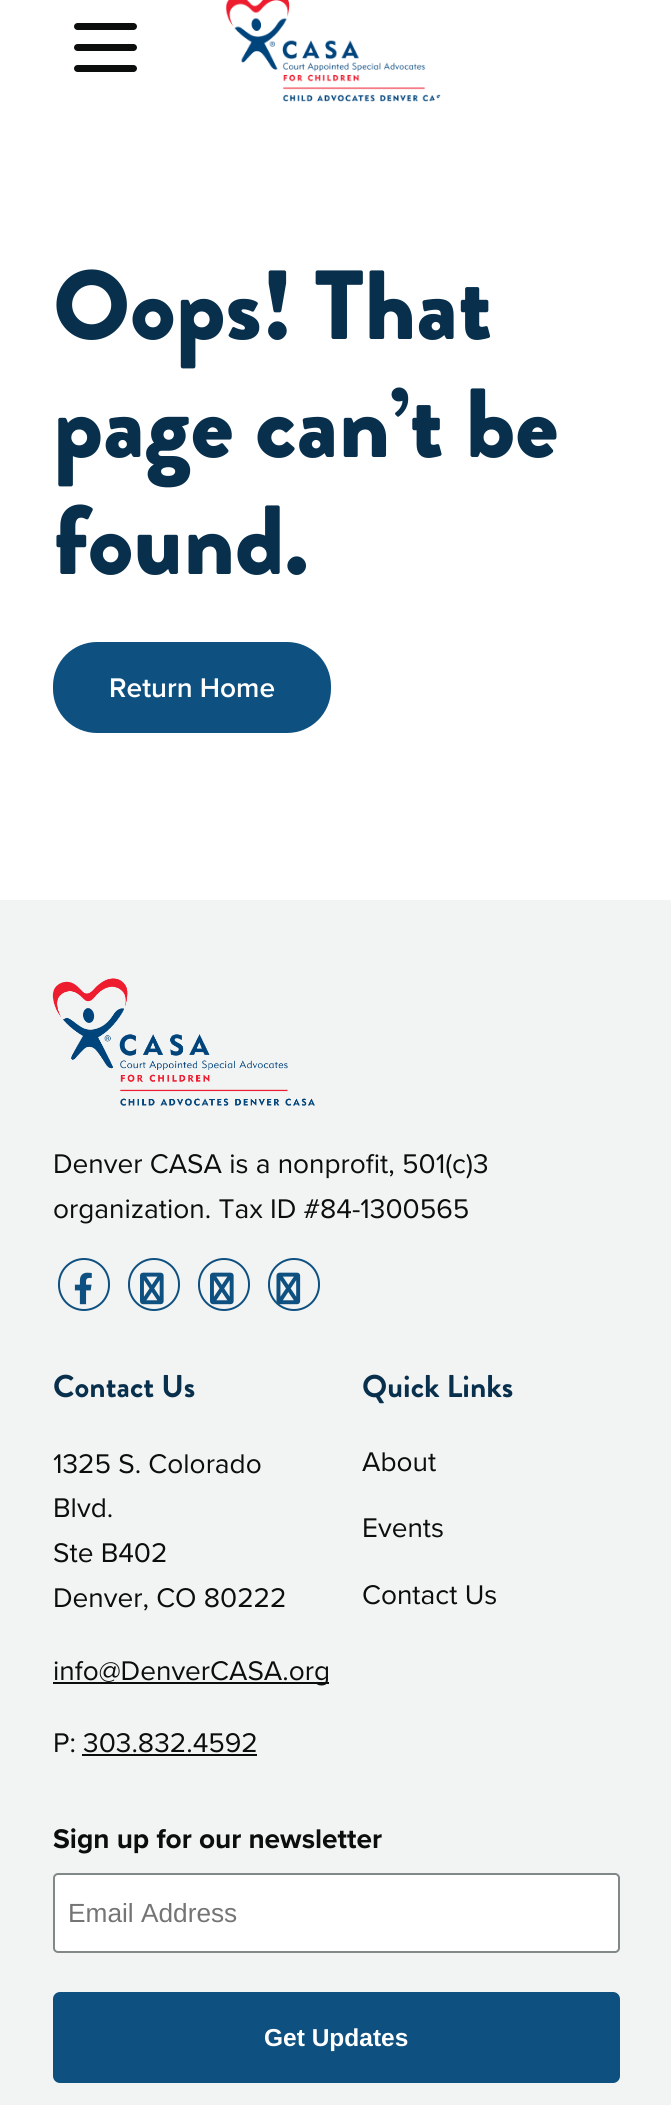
#include <cairo.h>
#include <math.h>
#include <stddef.h>


static void rgb(cairo_t *cr, int r, int g, int b)
{
	cairo_set_source_rgb(cr, r / 255.0, g / 255.0, b / 255.0);
}

static void face(cairo_t *cr, const char *family, double size, int italic, int bold)
{
	cairo_select_font_face(cr, family, italic ? CAIRO_FONT_SLANT_ITALIC : CAIRO_FONT_SLANT_NORMAL,
		bold ? CAIRO_FONT_WEIGHT_BOLD : CAIRO_FONT_WEIGHT_NORMAL);
	cairo_set_font_size(cr, size);
}

static void label(cairo_t *cr, double x, double y, const char *s)
{
	cairo_move_to(cr, x, y);
	cairo_show_text(cr, s);
}

static void rect(cairo_t *cr, double x, double y, double w, double h)
{
	cairo_rectangle(cr, x, y, w, h);
	cairo_fill(cr);
}

static void rrect(cairo_t *cr, double x, double y, double w, double h, double r)
{
	cairo_new_sub_path(cr);
	cairo_arc(cr, x + w - r, y + h - r, r, 0, M_PI / 2);
	cairo_arc(cr, x + r, y + h - r, r, M_PI / 2, M_PI);
	cairo_arc(cr, x + r, y + r, r, M_PI, 1.5 * M_PI);
	cairo_arc(cr, x + w - r, y + r, r, 1.5 * M_PI, 2 * M_PI);
	cairo_close_path(cr);
}

static void image(cairo_t *cr, const char *path, double x, double y, double w, double h)
{
	cairo_surface_t *image = cairo_image_surface_create_from_png(path);
	cairo_save(cr);
	cairo_set_source_surface(cr, image, x, y);
	cairo_rectangle(cr, x, y, w, h);
	cairo_fill(cr);
	cairo_restore(cr);
	cairo_surface_destroy(image);
}

static void draw(cairo_t *cr) {
	rgb(cr, 255, 255, 255);
	cairo_paint(cr);
	rgb(cr, 12, 13, 13);
	rrect(cr, 74, 23, 63, 7, 3.5);
	cairo_fill(cr);
	rrect(cr, 74, 44, 63, 7, 3.5);
	cairo_fill(cr);
	rrect(cr, 74, 65, 63, 7, 3.5);
	cairo_fill(cr);
	image(cr, "image0.png", 225, 0, 216, 102);
	face(cr, "Brandon Grotesque Black", 98, 0, 0);
	rgb(cr, 8, 48, 77);
	label(cr, 53, 339, "Oops! That");
	label(cr, 53, 457, "page can’t be");
	label(cr, 53, 574, "found.");
	rgb(cr, 14, 80, 128);
	rrect(cr, 55, 644, 274, 87, 42);
	cairo_fill_preserve(cr);
	cairo_set_line_width(cr, 4);
	cairo_stroke(cr);
	face(cr, "Proxima Nova SemiBold", 28, 0, 0);
	rgb(cr, 255, 255, 255);
	label(cr, 109, 697, "Return Home");
	rgb(cr, 242, 243, 243);
	rect(cr, 0, 900, 671, 1205);
	image(cr, "image1.png", 52, 978, 263, 128);
	face(cr, "Proxima Nova", 28, 0, 0);
	rgb(cr, 12, 13, 13);
	label(cr, 53, 1173, "Denver CASA is a nonprofit, 501(c)3");
	label(cr, 53, 1218, "organization. Tax ID #84-1300565");
	rrect(cr, 59, 1259, 50, 51, 25);
	rgb(cr, 14, 80, 128);
	cairo_set_line_width(cr, 2);
	cairo_stroke(cr);
	image(cr, "image2.png", 74, 1272, 18, 33);
	rrect(cr, 129, 1259, 50, 51, 25);
	cairo_stroke(cr);
	image(cr, "image3.png", 140, 1272, 24, 33);
	rrect(cr, 199, 1259, 50, 51, 25);
	cairo_stroke(cr);
	image(cr, "image3.png", 210, 1272, 24, 33);
	rrect(cr, 269, 1259, 50, 51, 25);
	cairo_stroke(cr);
	image(cr, "image4.png", 276, 1272, 25, 33);
	face(cr, "Brandon Grotesque", 31.5, 0, 1);
	rgb(cr, 8, 48, 77);
	label(cr, 53, 1397, "Contact Us");
	face(cr, "Proxima Nova", 28, 0, 0);
	rgb(cr, 12, 13, 13);
	label(cr, 53, 1473, "1325 S. Colorado");
	label(cr, 53, 1517, "Blvd.");
	label(cr, 53, 1562, "Ste B402");
	label(cr, 53, 1607, "Denver, CO 80222");
	rect(cr, 53, 1682, 276, 2);
	label(cr, 53, 1680, "info@DenverCASA.org");
	label(cr, 53, 1752, "P: 303.832.4592");
	rect(cr, 82, 1754, 175, 2);
	face(cr, "Brandon Grotesque", 31.5, 0, 1);
	rgb(cr, 8, 48, 77);
	label(cr, 362, 1397, "Quick Links");
	face(cr, "Proxima Nova", 28, 0, 0);
	rgb(cr, 12, 13, 13);
	label(cr, 362, 1471, "About");
	label(cr, 362, 1537, "Events");
	label(cr, 362, 1604, "Contact Us");
	face(cr, "Proxima Nova", 28, 0, 1);
	label(cr, 53, 1848, "Sign up for our newsletter");
	rgb(cr, 255, 255, 255);
	rrect(cr, 54, 1874, 565, 78, 4);
	cairo_fill_preserve(cr);
	rgb(cr, 129, 136, 136);
	cairo_stroke(cr);
	face(cr, "Liberation Sans", 26.25, 0, 0);
	rgb(cr, 117, 117, 117);
	label(cr, 68, 1922, "Email Address");
	rgb(cr, 14, 80, 128);
	rrect(cr, 53, 1992, 567, 91, 7);
	cairo_fill(cr);
	face(cr, "Liberation Sans", 24.5, 0, 1);
	rgb(cr, 255, 255, 255);
	label(cr, 264, 2046, "Get Updates");
}

int main(void) {
	cairo_surface_t *surface = cairo_image_surface_create(CAIRO_FORMAT_RGB24, 671, 2105);
	cairo_t *cr = cairo_create(surface);
	cairo_font_options_t *options = cairo_font_options_create();
	cairo_font_options_set_hint_metrics(options, CAIRO_HINT_METRICS_OFF);
	cairo_font_options_set_hint_style(options, CAIRO_HINT_STYLE_NONE);
	cairo_set_font_options(cr, options);
	cairo_set_miter_limit(cr, 4);
	draw(cr);
	cairo_surface_write_to_png(surface, "render.png");
	cairo_font_options_destroy(options);
	cairo_destroy(cr);
	cairo_surface_destroy(surface);
	return 0;
}
